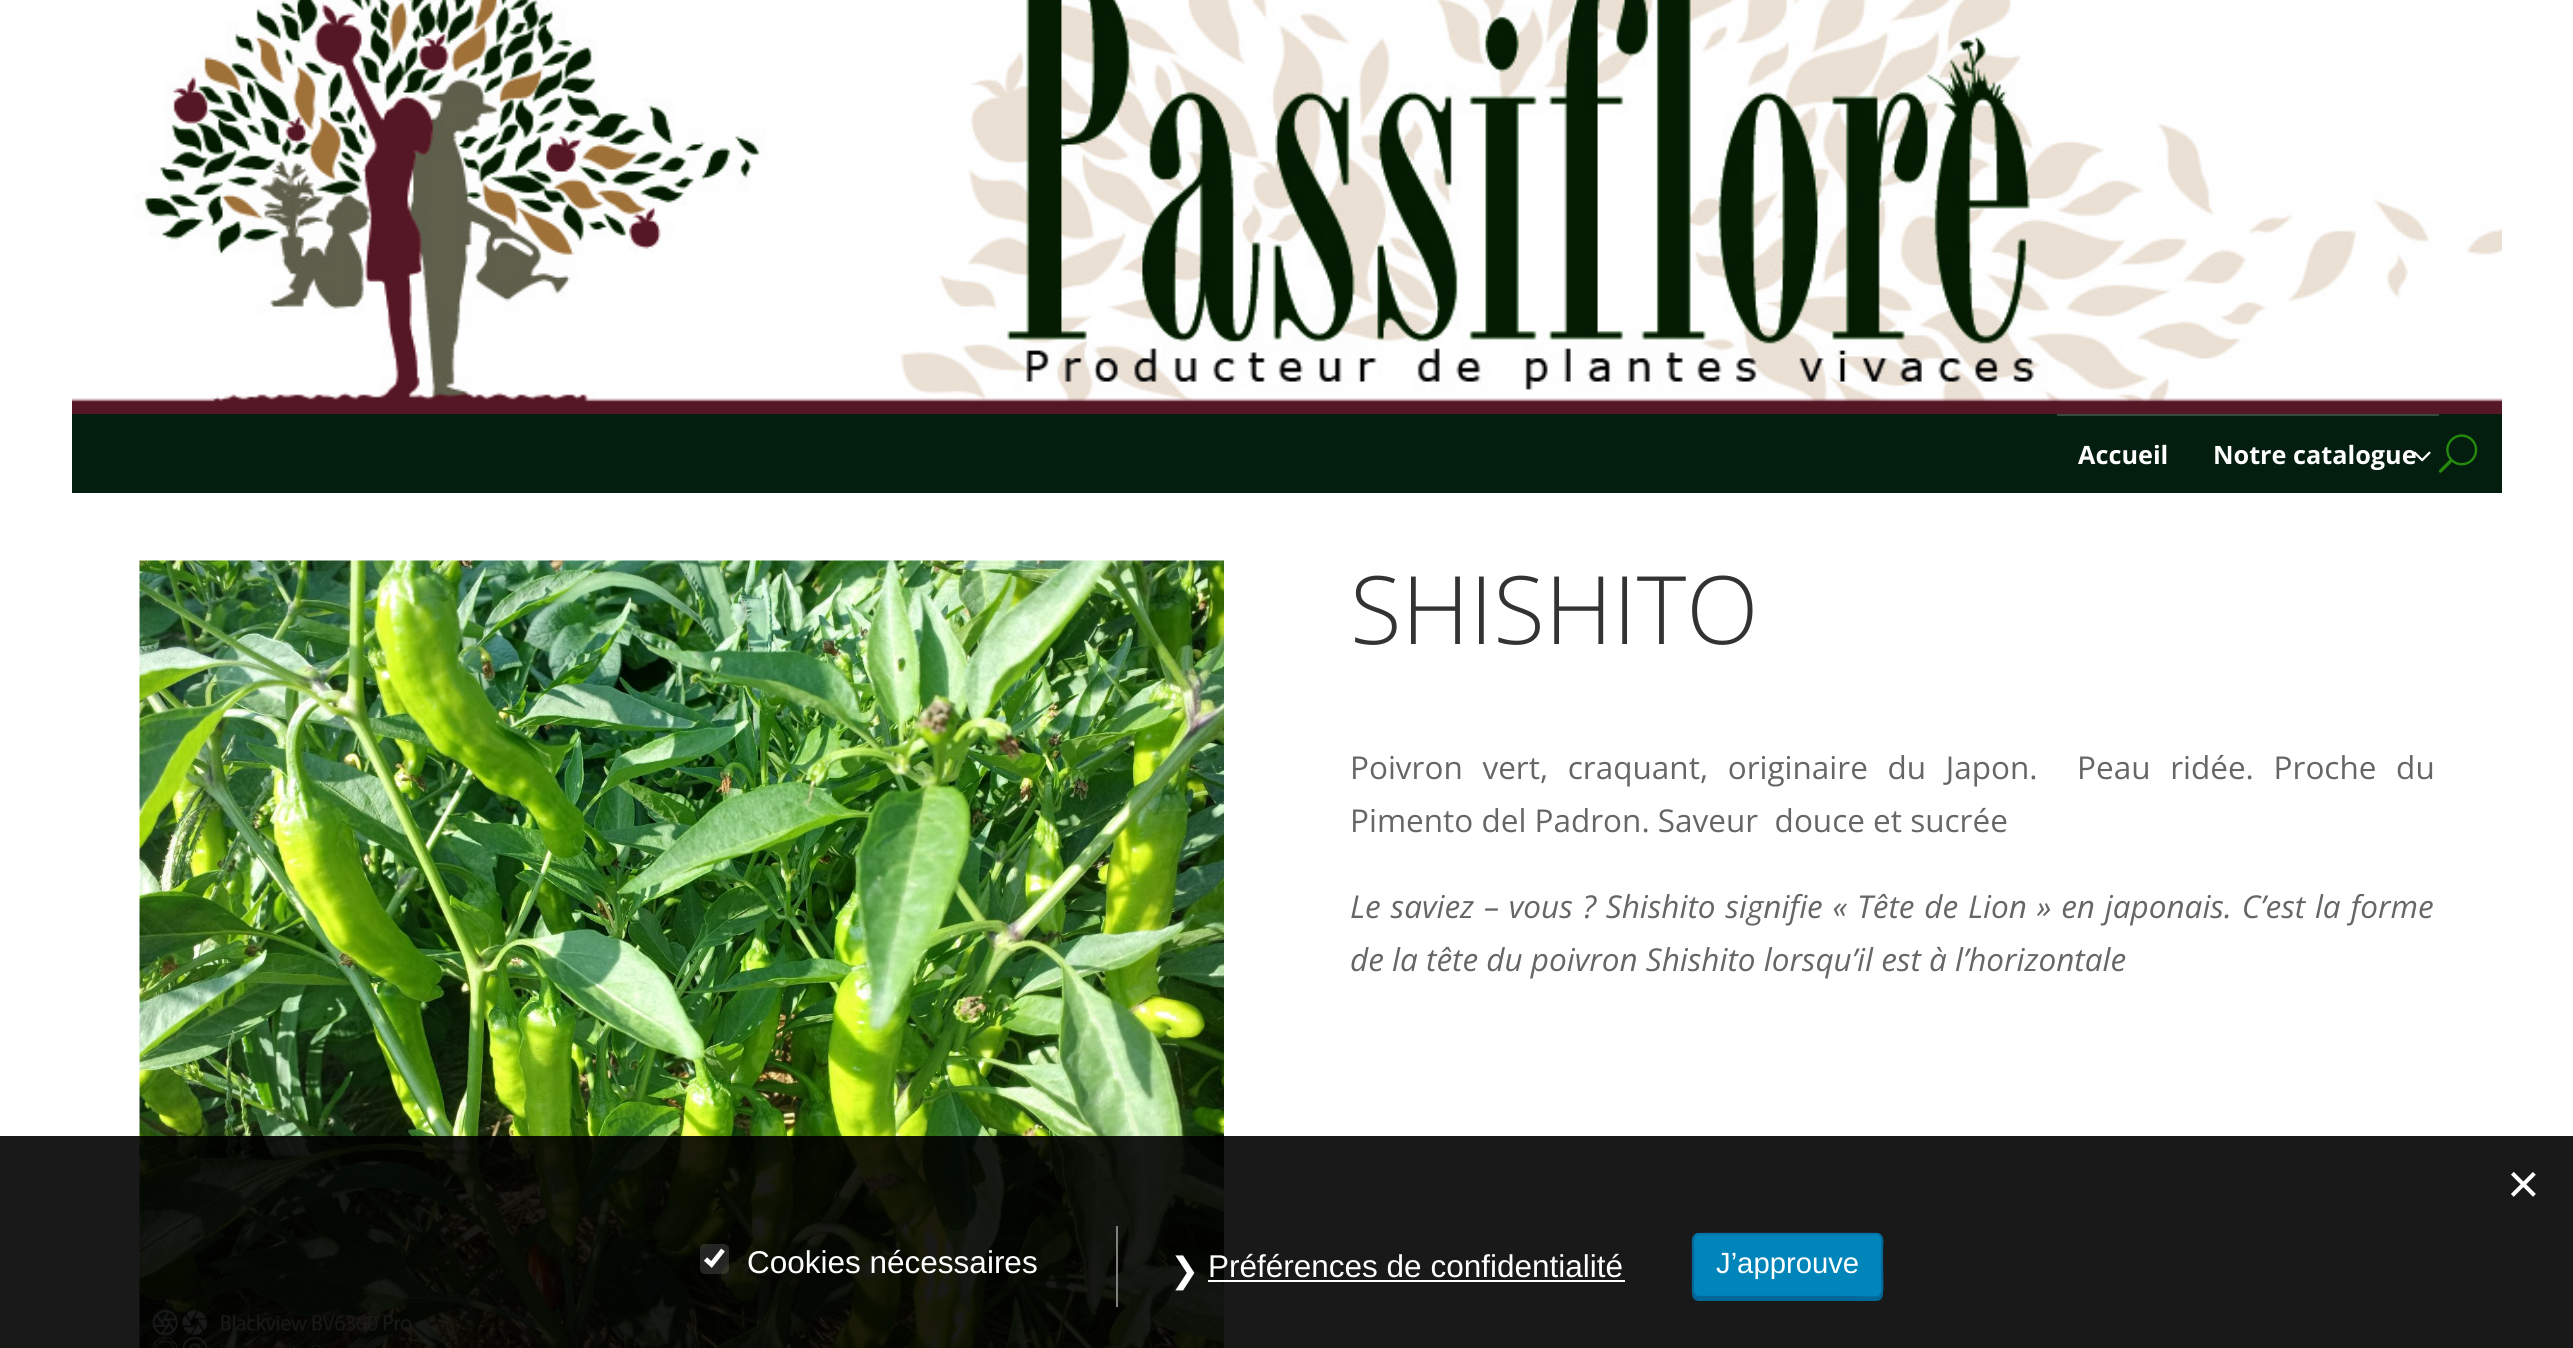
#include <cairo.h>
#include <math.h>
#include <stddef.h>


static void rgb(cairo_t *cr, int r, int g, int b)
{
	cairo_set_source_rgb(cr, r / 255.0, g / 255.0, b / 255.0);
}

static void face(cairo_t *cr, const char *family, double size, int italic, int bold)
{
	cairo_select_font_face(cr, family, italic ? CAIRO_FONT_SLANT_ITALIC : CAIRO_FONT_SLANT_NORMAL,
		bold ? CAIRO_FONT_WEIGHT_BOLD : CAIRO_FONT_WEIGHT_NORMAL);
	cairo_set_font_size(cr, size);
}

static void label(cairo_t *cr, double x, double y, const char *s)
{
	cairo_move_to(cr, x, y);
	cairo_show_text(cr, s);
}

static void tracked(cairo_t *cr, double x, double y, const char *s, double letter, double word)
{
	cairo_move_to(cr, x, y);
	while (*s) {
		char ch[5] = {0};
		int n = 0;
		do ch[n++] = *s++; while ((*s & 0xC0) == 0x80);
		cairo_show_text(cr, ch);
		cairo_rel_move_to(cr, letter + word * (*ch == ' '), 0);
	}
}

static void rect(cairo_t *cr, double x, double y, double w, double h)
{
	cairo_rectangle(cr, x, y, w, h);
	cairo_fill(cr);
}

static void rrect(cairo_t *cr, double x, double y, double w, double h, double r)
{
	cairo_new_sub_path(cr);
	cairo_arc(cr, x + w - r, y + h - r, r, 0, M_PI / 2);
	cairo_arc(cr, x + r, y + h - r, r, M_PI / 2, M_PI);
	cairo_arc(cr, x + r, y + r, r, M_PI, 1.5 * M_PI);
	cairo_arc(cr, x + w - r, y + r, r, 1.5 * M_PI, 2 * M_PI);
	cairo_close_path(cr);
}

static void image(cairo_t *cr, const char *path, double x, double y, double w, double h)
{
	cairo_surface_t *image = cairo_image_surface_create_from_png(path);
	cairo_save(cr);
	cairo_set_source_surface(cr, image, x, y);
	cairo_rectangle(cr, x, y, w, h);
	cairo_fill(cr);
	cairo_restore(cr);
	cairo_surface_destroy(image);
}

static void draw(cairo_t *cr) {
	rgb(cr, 255, 255, 255);
	cairo_paint(cr);
	image(cr, "image0.png", 72, 0, 2430, 414);
	rgb(cr, 3, 30, 14);
	rect(cr, 72, 414, 2430, 79);
	rgb(cr, 53, 75, 62);
	rect(cr, 2057, 414, 382, 2);
	face(cr, "Open Sans", 25.25, 0, 1);
	rgb(cr, 255, 255, 255);
	label(cr, 2078, 464, "Accueil");
	label(cr, 2213, 464, "Notre catalogue");
	image(cr, "image1.png", 2414, 451, 17, 11);
	image(cr, "image2.png", 2438, 434, 40, 39);
	image(cr, "image3.png", 139, 560, 1085, 788);
	face(cr, "Open Sans Light", 94.5, 0, 0);
	rgb(cr, 51, 51, 51);
	label(cr, 1350, 644, "SHISHITO");
	face(cr, "Open Sans", 31.5, 0, 0);
	rgb(cr, 102, 102, 102);
	tracked(cr, 1350, 779, "Poivron vert, craquant, originaire du Japon.  Peau ridée. Proche du", 0, 11.5);
	label(cr, 1350, 832, "Pimento del Padron. Saveur  douce et sucrée");
	face(cr, "Open Sans", 31.5, 1, 0);
	tracked(cr, 1350, 918, "Le saviez – vous ? Shishito signifie « Tête de Lion » en japonais. C’est la forme", 0, 1.6);
	label(cr, 1350, 971, "de la tête du poivron Shishito lorsqu’il est à l’horizontale");
	cairo_set_source_rgba(cr, 0, 0, 0, 0.9);
	rect(cr, 0, 1136, 2573, 212);
	face(cr, "Liberation Sans", 56, 0, 0);
	rgb(cr, 255, 255, 255);
	label(cr, 2507, 1203, "×");
	rgb(cr, 128, 128, 128);
	rect(cr, 1116, 1226, 2, 81);
	cairo_set_source_rgba(cr, 0.463, 0.463, 0.463, 0.3);
	rrect(cr, 700, 1244, 29, 30, 5);
	cairo_fill(cr);
	cairo_new_path(cr);
	cairo_move_to(cr, 705.5, 1259);
	cairo_line_to(cr, 711.5, 1264.5);
	cairo_line_to(cr, 723, 1250);
	rgb(cr, 255, 255, 255);
	cairo_set_line_width(cr, 4.7);
	cairo_stroke(cr);
	face(cr, "Liberation Sans", 31.5, 0, 0);
	label(cr, 747, 1273, "Cookies nécessaires");
	face(cr, "DejaVu Sans", 35, 0, 0);
	label(cr, 1170, 1282, "❯");
	face(cr, "Liberation Sans", 31.5, 0, 0);
	label(cr, 1208, 1277, "Préférences de confidentialité");
	rect(cr, 1208, 1280, 417, 2);
	rgb(cr, 0, 103, 153);
	cairo_new_path(cr);
	cairo_move_to(cr, 1692, 1292);
	cairo_line_to(cr, 1692, 1294);
	cairo_curve_to(cr, 1692, 1298, 1695, 1301, 1699, 1301);
	cairo_line_to(cr, 1876, 1301);
	cairo_curve_to(cr, 1880, 1301, 1883, 1298, 1883, 1294);
	cairo_line_to(cr, 1883, 1293);
	cairo_curve_to(cr, 1882, 1296, 1880, 1298, 1876, 1298);
	cairo_line_to(cr, 1699, 1298);
	cairo_curve_to(cr, 1695, 1298, 1692, 1295, 1692, 1292);
	cairo_close_path(cr);
	cairo_fill(cr);
	rgb(cr, 0, 133, 186);
	rrect(cr, 1692, 1233, 191, 65, 7);
	cairo_fill(cr);
	cairo_new_path(cr);
	cairo_move_to(cr, 1695, 1236);
	cairo_curve_to(cr, 1696, 1234.5, 1697.5, 1234, 1699, 1234);
	cairo_line_to(cr, 1876.5, 1234);
	cairo_curve_to(cr, 1878, 1234, 1879.5, 1234.5, 1880.5, 1236);
	rgb(cr, 0, 115, 170);
	cairo_set_line_width(cr, 2.2);
	cairo_stroke(cr);
	cairo_new_path(cr);
	cairo_move_to(cr, 1880.5, 1236);
	cairo_curve_to(cr, 1883.5, 1239, 1882, 1245.5, 1882, 1248.5);
	cairo_line_to(cr, 1882, 1265.5);
	cairo_curve_to(cr, 1882, 1304.5, 1888.5, 1297, 1847, 1297);
	cairo_line_to(cr, 1699, 1297);
	cairo_curve_to(cr, 1691.5, 1297, 1693, 1287, 1693, 1283);
	cairo_line_to(cr, 1693, 1248.5);
	cairo_curve_to(cr, 1693, 1245.5, 1692, 1239, 1695, 1236);
	rgb(cr, 0, 103, 153);
	cairo_stroke(cr);
	face(cr, "Liberation Sans", 29.25, 0, 0);
	rgb(cr, 255, 255, 255);
	label(cr, 1716, 1273, "J’approuve");
}

int main(void) {
	cairo_surface_t *surface = cairo_image_surface_create(CAIRO_FORMAT_RGB24, 2573, 1348);
	cairo_t *cr = cairo_create(surface);
	cairo_font_options_t *options = cairo_font_options_create();
	cairo_font_options_set_hint_metrics(options, CAIRO_HINT_METRICS_OFF);
	cairo_font_options_set_hint_style(options, CAIRO_HINT_STYLE_NONE);
	cairo_set_font_options(cr, options);
	cairo_set_miter_limit(cr, 4);
	draw(cr);
	cairo_surface_write_to_png(surface, "render.png");
	cairo_font_options_destroy(options);
	cairo_destroy(cr);
	cairo_surface_destroy(surface);
	return 0;
}
